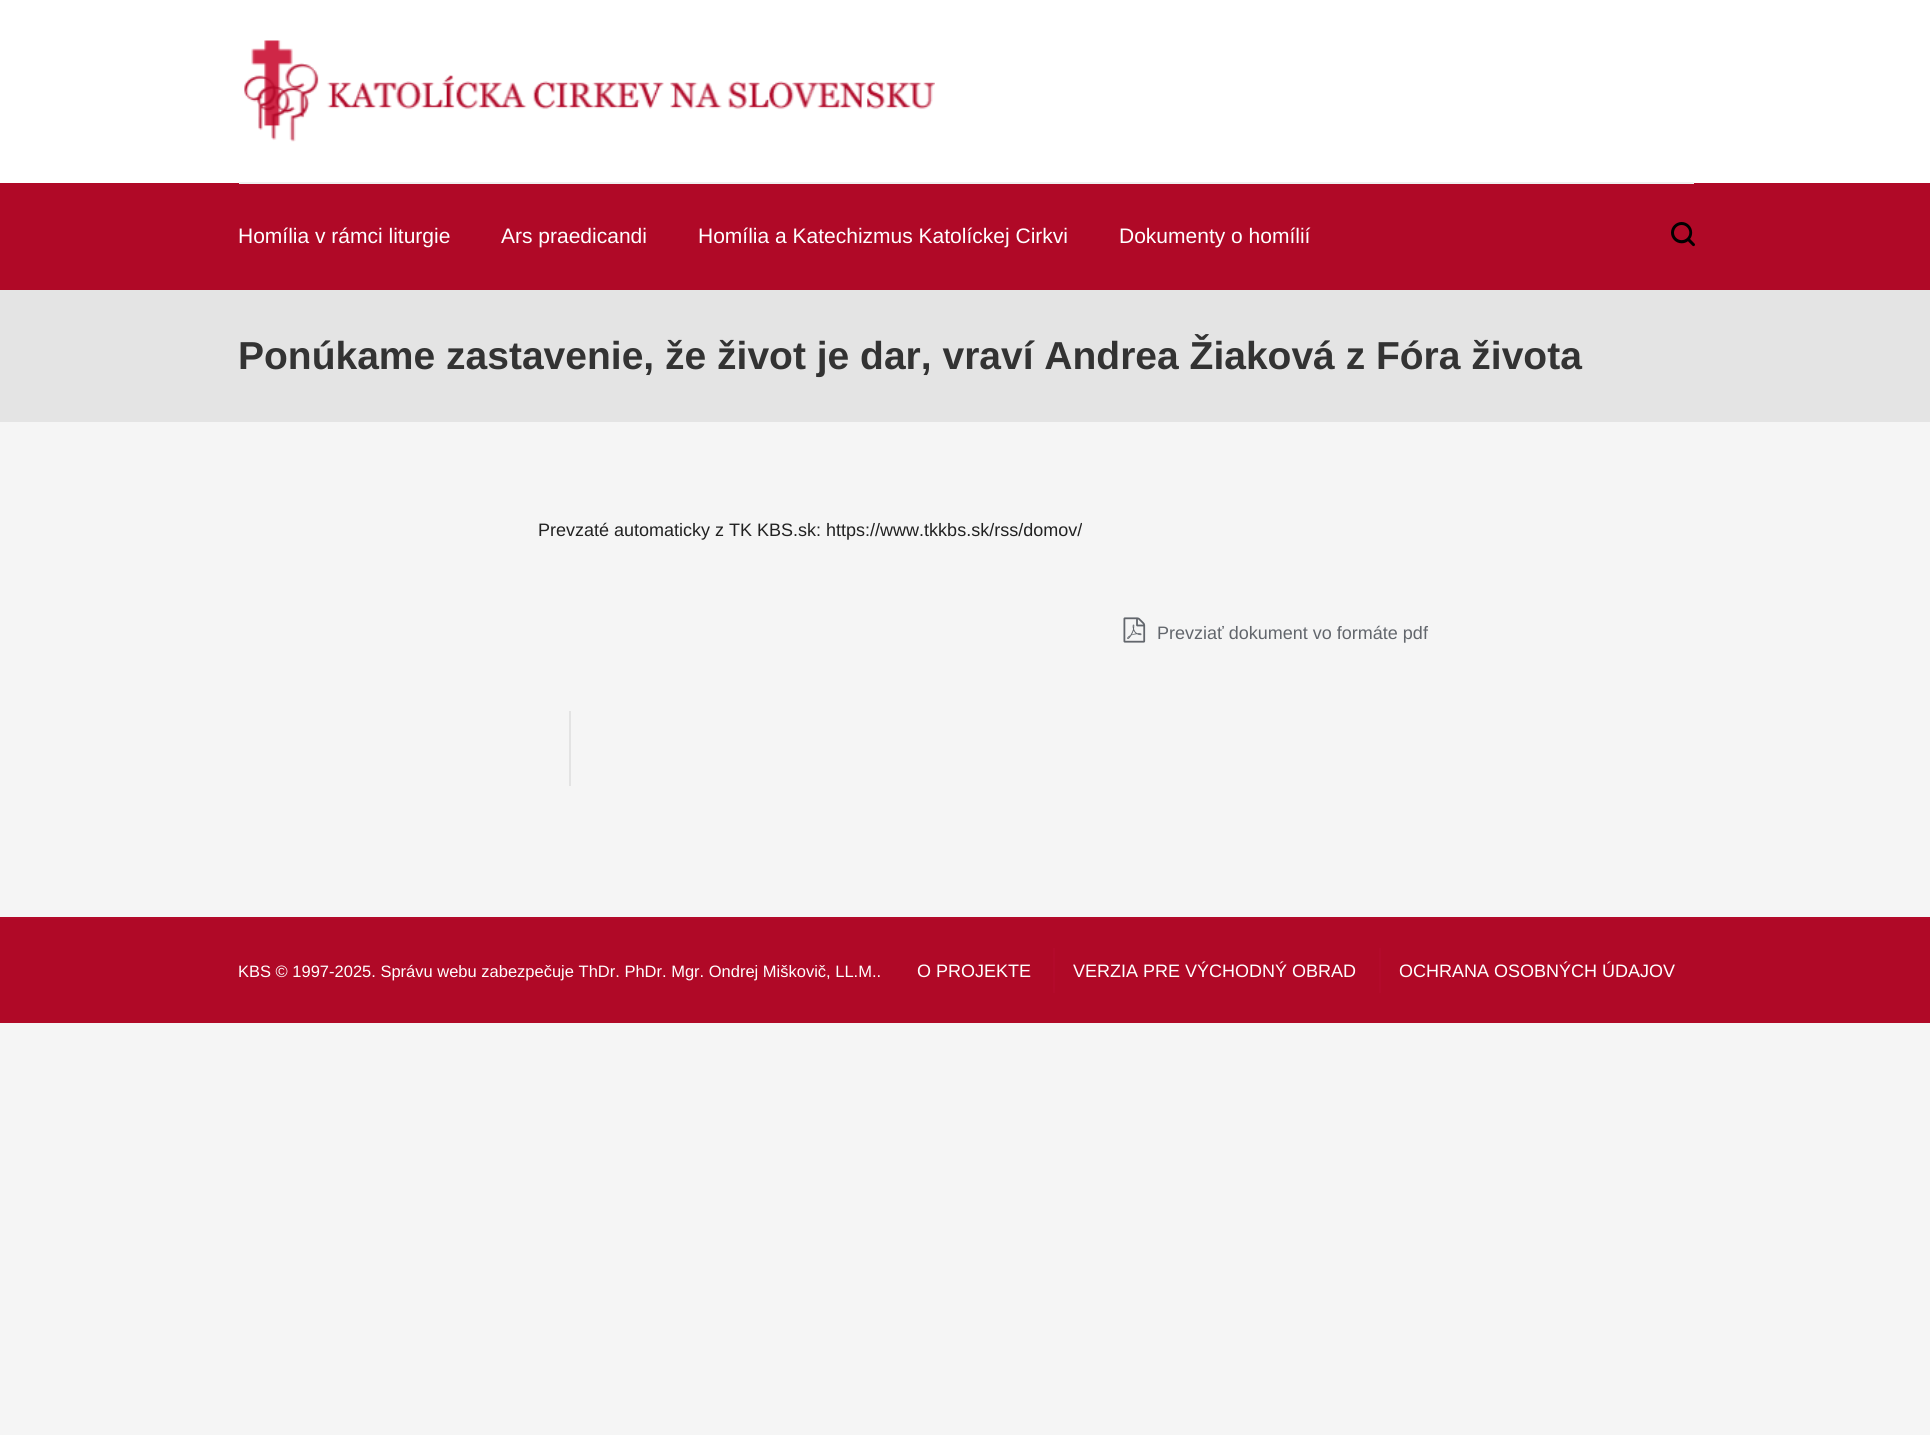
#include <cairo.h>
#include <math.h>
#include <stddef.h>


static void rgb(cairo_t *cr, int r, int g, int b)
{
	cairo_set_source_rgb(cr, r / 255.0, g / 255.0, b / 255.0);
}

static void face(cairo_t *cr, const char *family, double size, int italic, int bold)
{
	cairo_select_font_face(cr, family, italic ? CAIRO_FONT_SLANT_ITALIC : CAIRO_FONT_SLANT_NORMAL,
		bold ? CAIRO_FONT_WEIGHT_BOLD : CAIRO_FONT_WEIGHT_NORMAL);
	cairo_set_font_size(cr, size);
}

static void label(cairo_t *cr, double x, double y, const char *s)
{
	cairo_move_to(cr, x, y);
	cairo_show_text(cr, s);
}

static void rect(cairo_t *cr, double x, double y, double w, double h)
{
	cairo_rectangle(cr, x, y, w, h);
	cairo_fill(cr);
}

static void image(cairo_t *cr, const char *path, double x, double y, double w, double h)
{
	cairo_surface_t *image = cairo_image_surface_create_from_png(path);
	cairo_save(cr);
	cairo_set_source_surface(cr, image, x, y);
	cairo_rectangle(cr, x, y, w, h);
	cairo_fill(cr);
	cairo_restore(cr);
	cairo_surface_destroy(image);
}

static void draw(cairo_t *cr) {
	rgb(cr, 245, 245, 245);
	cairo_paint(cr);
	rgb(cr, 255, 255, 255);
	rect(cr, 0, 0, 1930, 183);
	image(cr, "image0.png", 244, 40, 691, 102);
	rgb(cr, 176, 9, 39);
	rect(cr, 0, 183, 1930, 107);
	rgb(cr, 240, 240, 240);
	rect(cr, 239, 182, 1455, 2);
	face(cr, "Liberation Sans", 21, 0, 0);
	rgb(cr, 255, 255, 255);
	label(cr, 238, 243, "Homília v rámci liturgie");
	label(cr, 501, 243, "Ars praedicandi");
	label(cr, 698, 243, "Homília a Katechizmus Katolíckej Cirkvi");
	label(cr, 1119, 243, "Dokumenty o homílií");
	image(cr, "image1.png", 1671, 222, 24, 25);
	rgb(cr, 228, 228, 228);
	rect(cr, 0, 290, 1930, 132);
	face(cr, "Liberation Sans", 39, 0, 1);
	rgb(cr, 51, 51, 51);
	label(cr, 238, 369, "Ponúkame zastavenie, že život je dar, vraví Andrea Žiaková z Fóra života");
	face(cr, "Liberation Sans", 18, 0, 0);
	rgb(cr, 34, 34, 34);
	label(cr, 538, 536, "Prevzaté automaticky z TK KBS.sk: https://www.tkkbs.sk/rss/domov/");
	image(cr, "image2.png", 1123, 617, 23, 26);
	rgb(cr, 98, 102, 108);
	label(cr, 1157, 639, "Prevziať dokument vo formáte pdf");
	rgb(cr, 227, 227, 227);
	rect(cr, 569, 711, 2, 75);
	rgb(cr, 176, 9, 39);
	rect(cr, 0, 919, 1930, 104);
	rgb(cr, 179, 10, 43);
	rect(cr, 0, 917, 1930, 2);
	face(cr, "Liberation Sans", 16.5, 0, 0);
	rgb(cr, 255, 255, 255);
	label(cr, 238, 977, "KBS © 1997-2025. Správu webu zabezpečuje ThDr. PhDr. Mgr. Ondrej Miškovič, LL.M..");
	face(cr, "Liberation Sans", 18, 0, 0);
	label(cr, 917, 977, "O PROJEKTE");
	rgb(cr, 179, 10, 43);
	rect(cr, 1053, 948, 2, 45);
	rgb(cr, 255, 255, 255);
	label(cr, 1073, 977, "VERZIA PRE VÝCHODNÝ OBRAD");
	rgb(cr, 179, 10, 43);
	rect(cr, 1379, 948, 2, 45);
	rgb(cr, 255, 255, 255);
	label(cr, 1399, 977, "OCHRANA OSOBNÝCH ÚDAJOV");
}

int main(void) {
	cairo_surface_t *surface = cairo_image_surface_create(CAIRO_FORMAT_RGB24, 1930, 1435);
	cairo_t *cr = cairo_create(surface);
	cairo_font_options_t *options = cairo_font_options_create();
	cairo_font_options_set_hint_metrics(options, CAIRO_HINT_METRICS_OFF);
	cairo_font_options_set_hint_style(options, CAIRO_HINT_STYLE_NONE);
	cairo_set_font_options(cr, options);
	cairo_set_miter_limit(cr, 4);
	draw(cr);
	cairo_surface_write_to_png(surface, "render.png");
	cairo_font_options_destroy(options);
	cairo_destroy(cr);
	cairo_surface_destroy(surface);
	return 0;
}
